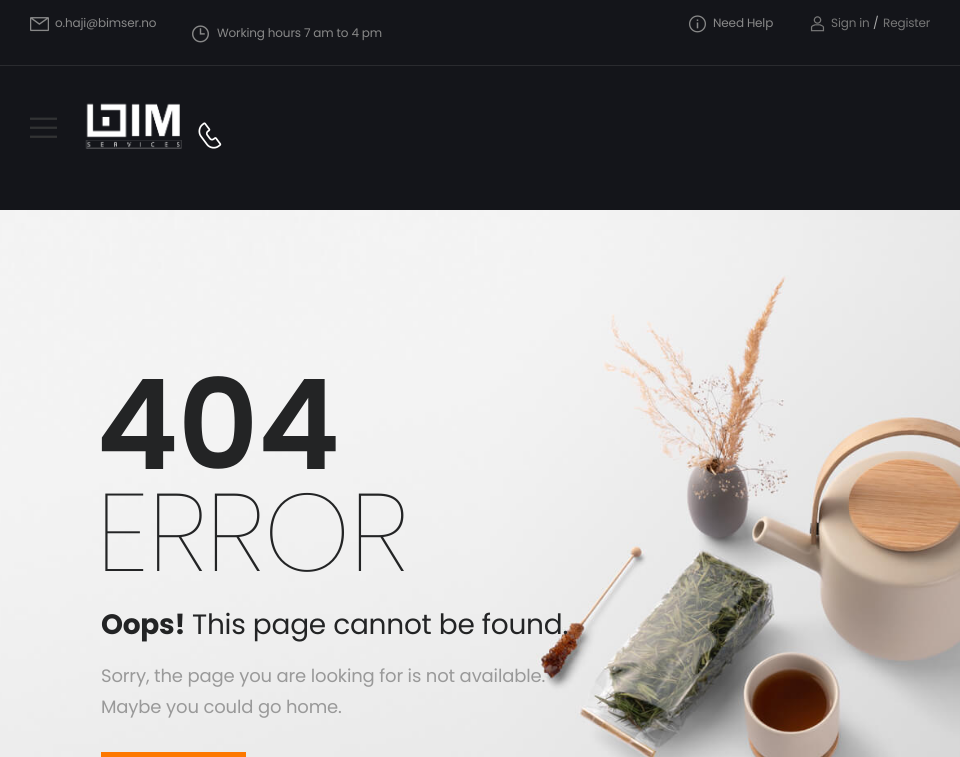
#include <cairo.h>
#include <math.h>
#include <stddef.h>


static void rgb(cairo_t *cr, int r, int g, int b)
{
	cairo_set_source_rgb(cr, r / 255.0, g / 255.0, b / 255.0);
}

static void face(cairo_t *cr, const char *family, double size, int italic, int bold)
{
	cairo_select_font_face(cr, family, italic ? CAIRO_FONT_SLANT_ITALIC : CAIRO_FONT_SLANT_NORMAL,
		bold ? CAIRO_FONT_WEIGHT_BOLD : CAIRO_FONT_WEIGHT_NORMAL);
	cairo_set_font_size(cr, size);
}

static void tracked(cairo_t *cr, double x, double y, const char *s, double letter, double word)
{
	cairo_move_to(cr, x, y);
	while (*s) {
		char ch[5] = {0};
		int n = 0;
		do ch[n++] = *s++; while ((*s & 0xC0) == 0x80);
		cairo_show_text(cr, ch);
		cairo_rel_move_to(cr, letter + word * (*ch == ' '), 0);
	}
}

static void rect(cairo_t *cr, double x, double y, double w, double h)
{
	cairo_rectangle(cr, x, y, w, h);
	cairo_fill(cr);
}

static void image(cairo_t *cr, const char *path, double x, double y, double w, double h)
{
	cairo_surface_t *image = cairo_image_surface_create_from_png(path);
	cairo_save(cr);
	cairo_set_source_surface(cr, image, x, y);
	cairo_rectangle(cr, x, y, w, h);
	cairo_fill(cr);
	cairo_restore(cr);
	cairo_surface_destroy(image);
}

static void draw(cairo_t *cr) {
	rgb(cr, 20, 21, 26);
	cairo_paint(cr);
	rgb(cr, 42, 43, 47);
	rect(cr, 0, 65, 960, 1);
	image(cr, "image0.png", 30, 17, 19, 15);
	face(cr, "Poppins", 12, 0, 0);
	rgb(cr, 136, 136, 136);
	tracked(cr, 55, 27, "o.haji@bimser.no", -0.15, 0);
	image(cr, "image1.png", 192, 25, 17, 18);
	tracked(cr, 217, 37, "Working hours 7 am to 4 pm", -0.15, 0);
	image(cr, "image2.png", 689, 15, 17, 18);
	tracked(cr, 713, 27, "Need Help", -0.15, 0);
	image(cr, "image3.png", 810, 16, 15, 16);
	rgb(cr, 119, 119, 119);
	tracked(cr, 831, 27, "Sign in", -0.15, 0);
	rgb(cr, 170, 170, 170);
	tracked(cr, 873, 27, "/", -0.15, 0);
	rgb(cr, 119, 119, 119);
	tracked(cr, 883, 27, "Register", -0.15, 0);
	image(cr, "image4.png", 30, 117, 27, 21);
	image(cr, "image5.png", 85, 103, 97, 46);
	image(cr, "image6.png", 198, 122, 24, 27);
	image(cr, "image7.png", 0, 210, 960, 547);
	face(cr, "Poppins SemiBold", 125, 0, 0);
	rgb(cr, 35, 36, 37);
	tracked(cr, 96, 469, "404", -1, 0);
	face(cr, "Poppins Thin", 110, 0, 0);
	tracked(cr, 96, 571, "ERROR", -1, 0);
	face(cr, "Poppins", 28, 0, 1);
	tracked(cr, 101, 634, "Oops!", -0.25, 0);
	face(cr, "Poppins", 28, 0, 0);
	tracked(cr, 192, 634, "This page cannot be found.", -0.25, 0);
	face(cr, "Poppins", 18, 0, 0);
	rgb(cr, 153, 153, 153);
	tracked(cr, 101, 682, "Sorry, the page you are looking for is not available.", -0.15, 0);
	tracked(cr, 101, 713, "Maybe you could go home.", -0.15, 0);
	rgb(cr, 253, 120, 0);
	rect(cr, 101, 752, 145, 5);
}

int main(void) {
	cairo_surface_t *surface = cairo_image_surface_create(CAIRO_FORMAT_RGB24, 960, 757);
	cairo_t *cr = cairo_create(surface);
	cairo_font_options_t *options = cairo_font_options_create();
	cairo_font_options_set_hint_metrics(options, CAIRO_HINT_METRICS_OFF);
	cairo_font_options_set_hint_style(options, CAIRO_HINT_STYLE_NONE);
	cairo_set_font_options(cr, options);
	cairo_set_miter_limit(cr, 4);
	draw(cr);
	cairo_surface_write_to_png(surface, "render.png");
	cairo_font_options_destroy(options);
	cairo_destroy(cr);
	cairo_surface_destroy(surface);
	return 0;
}
